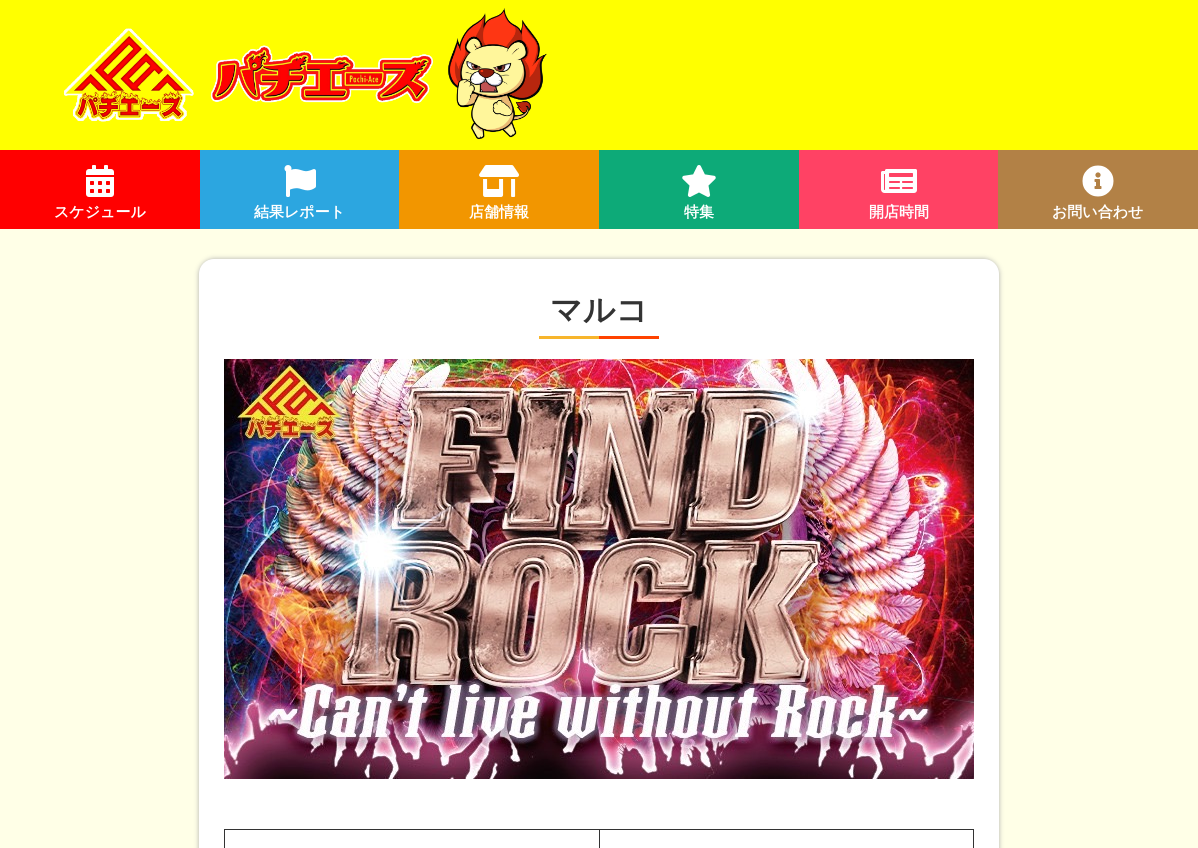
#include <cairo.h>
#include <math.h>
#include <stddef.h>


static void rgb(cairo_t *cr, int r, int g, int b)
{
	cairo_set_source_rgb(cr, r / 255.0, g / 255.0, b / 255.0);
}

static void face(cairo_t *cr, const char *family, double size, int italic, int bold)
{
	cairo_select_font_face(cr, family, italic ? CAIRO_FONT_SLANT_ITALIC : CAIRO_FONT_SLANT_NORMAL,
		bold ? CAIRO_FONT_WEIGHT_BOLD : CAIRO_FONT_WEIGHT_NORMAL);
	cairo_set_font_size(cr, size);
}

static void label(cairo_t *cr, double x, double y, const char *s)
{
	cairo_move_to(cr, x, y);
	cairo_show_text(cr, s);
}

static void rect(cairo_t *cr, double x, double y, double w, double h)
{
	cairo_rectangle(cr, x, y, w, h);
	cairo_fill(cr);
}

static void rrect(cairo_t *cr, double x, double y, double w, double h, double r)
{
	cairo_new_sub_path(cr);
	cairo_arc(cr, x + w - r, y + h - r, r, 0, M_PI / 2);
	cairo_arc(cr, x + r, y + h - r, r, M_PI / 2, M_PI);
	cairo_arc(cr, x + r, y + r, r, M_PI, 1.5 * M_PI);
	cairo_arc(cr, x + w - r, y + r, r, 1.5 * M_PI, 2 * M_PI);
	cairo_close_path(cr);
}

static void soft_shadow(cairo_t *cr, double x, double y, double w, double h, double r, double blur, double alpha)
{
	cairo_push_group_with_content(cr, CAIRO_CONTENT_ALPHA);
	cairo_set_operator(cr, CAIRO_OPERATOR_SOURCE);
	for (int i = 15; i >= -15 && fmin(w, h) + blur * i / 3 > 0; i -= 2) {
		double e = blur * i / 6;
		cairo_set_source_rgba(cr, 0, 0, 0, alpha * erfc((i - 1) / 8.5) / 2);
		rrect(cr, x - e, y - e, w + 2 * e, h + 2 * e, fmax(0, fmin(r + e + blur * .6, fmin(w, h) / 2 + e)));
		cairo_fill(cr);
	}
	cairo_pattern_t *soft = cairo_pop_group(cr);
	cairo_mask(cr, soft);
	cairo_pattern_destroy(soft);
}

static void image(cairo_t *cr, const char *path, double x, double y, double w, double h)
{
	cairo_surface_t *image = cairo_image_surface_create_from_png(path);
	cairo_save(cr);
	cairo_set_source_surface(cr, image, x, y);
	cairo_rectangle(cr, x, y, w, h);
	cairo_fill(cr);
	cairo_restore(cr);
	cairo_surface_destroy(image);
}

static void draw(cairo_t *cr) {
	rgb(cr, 255, 255, 231);
	cairo_paint(cr);
	rgb(cr, 255, 255, 0);
	rect(cr, 0, 0, 1198, 150);
	image(cr, "image0.png", 63, 8, 484, 132);
	rgb(cr, 255, 0, 0);
	rect(cr, 0, 150, 200, 79);
	image(cr, "image1.png", 86, 165, 28, 32);
	face(cr, "WenQuanYi Zen Hei", 15, 0, 1);
	rgb(cr, 255, 255, 255);
	label(cr, 54, 217, "スケジュール");
	rgb(cr, 44, 166, 224);
	rect(cr, 200, 150, 199, 79);
	image(cr, "image2.png", 284, 165, 32, 32);
	rgb(cr, 255, 255, 255);
	label(cr, 254, 217, "結果レポート");
	rgb(cr, 242, 150, 0);
	rect(cr, 399, 150, 200, 79);
	image(cr, "image3.png", 479, 165, 40, 32);
	rgb(cr, 255, 255, 255);
	label(cr, 469, 217, "店舗情報");
	rgb(cr, 13, 170, 120);
	rect(cr, 599, 150, 200, 79);
	image(cr, "image4.png", 682, 165, 34, 32);
	rgb(cr, 255, 255, 255);
	label(cr, 684, 217, "特集");
	rgb(cr, 255, 66, 100);
	rect(cr, 799, 150, 199, 79);
	image(cr, "image5.png", 881, 169, 36, 24);
	rgb(cr, 255, 255, 255);
	label(cr, 869, 217, "開店時間");
	rgb(cr, 178, 129, 70);
	rect(cr, 998, 150, 200, 79);
	image(cr, "image6.png", 1082, 165, 32, 32);
	rgb(cr, 255, 255, 255);
	label(cr, 1052, 217, "お問い合わせ");
	rgb(cr, 175, 175, 175);
	soft_shadow(cr, 199, 259, 800, 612, 15, 2.5, 1);
	rgb(cr, 255, 255, 255);
	rrect(cr, 199, 259, 800, 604, 15);
	cairo_fill(cr);
	face(cr, "WenQuanYi Zen Hei", 32, 0, 1);
	rgb(cr, 51, 51, 51);
	label(cr, 550, 321, "マルコ");
	rgb(cr, 247, 181, 44);
	rect(cr, 539, 336, 60, 3);
	rgb(cr, 255, 66, 0);
	rect(cr, 599, 336, 60, 3);
	image(cr, "image7.png", 224, 359, 750, 420);
	rgb(cr, 51, 51, 51);
	rect(cr, 599, 829, 375, 1);
	rect(cr, 599, 829, 1, 19);
	rect(cr, 224, 829, 376, 1);
	rect(cr, 224, 829, 1, 19);
	rect(cr, 973, 829, 1, 19);
}

int main(void) {
	cairo_surface_t *surface = cairo_image_surface_create(CAIRO_FORMAT_RGB24, 1198, 848);
	cairo_t *cr = cairo_create(surface);
	cairo_font_options_t *options = cairo_font_options_create();
	cairo_font_options_set_hint_metrics(options, CAIRO_HINT_METRICS_OFF);
	cairo_font_options_set_hint_style(options, CAIRO_HINT_STYLE_NONE);
	cairo_set_font_options(cr, options);
	cairo_set_miter_limit(cr, 4);
	draw(cr);
	cairo_surface_write_to_png(surface, "render.png");
	cairo_font_options_destroy(options);
	cairo_destroy(cr);
	cairo_surface_destroy(surface);
	return 0;
}
